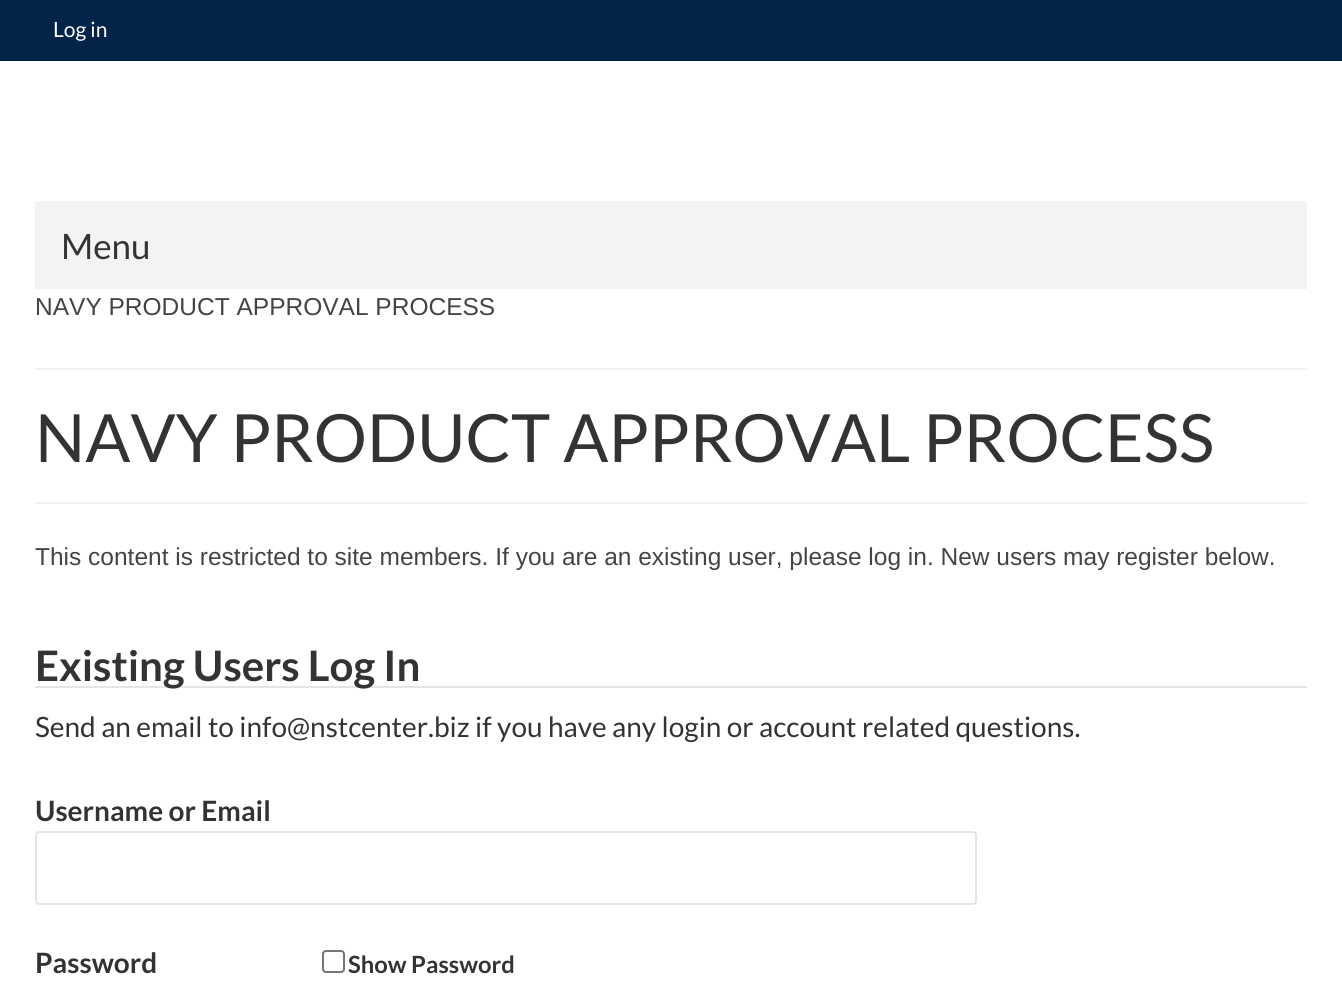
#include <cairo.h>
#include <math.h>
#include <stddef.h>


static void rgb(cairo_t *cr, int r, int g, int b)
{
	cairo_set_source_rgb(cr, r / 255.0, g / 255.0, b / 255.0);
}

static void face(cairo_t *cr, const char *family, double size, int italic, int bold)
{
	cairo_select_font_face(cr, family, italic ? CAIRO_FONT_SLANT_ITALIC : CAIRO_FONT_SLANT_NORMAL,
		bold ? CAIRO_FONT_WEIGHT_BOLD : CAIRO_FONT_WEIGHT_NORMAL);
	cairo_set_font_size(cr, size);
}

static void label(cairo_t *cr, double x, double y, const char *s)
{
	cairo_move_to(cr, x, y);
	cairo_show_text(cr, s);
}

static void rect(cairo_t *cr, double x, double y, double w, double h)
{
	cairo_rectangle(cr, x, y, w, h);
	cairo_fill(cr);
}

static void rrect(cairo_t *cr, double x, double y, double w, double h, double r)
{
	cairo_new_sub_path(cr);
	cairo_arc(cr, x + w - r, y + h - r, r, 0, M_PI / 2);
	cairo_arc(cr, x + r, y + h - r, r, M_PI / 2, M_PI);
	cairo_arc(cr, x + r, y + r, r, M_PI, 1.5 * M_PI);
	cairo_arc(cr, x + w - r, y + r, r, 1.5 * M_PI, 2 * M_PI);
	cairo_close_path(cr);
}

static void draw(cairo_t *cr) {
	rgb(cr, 255, 255, 255);
	cairo_paint(cr);
	rgb(cr, 2, 36, 72);
	rect(cr, 0, 0, 1342, 61);
	face(cr, "Lato", 21, 0, 0);
	rgb(cr, 255, 255, 255);
	label(cr, 53, 37, "Log in");
	rgb(cr, 243, 243, 243);
	rect(cr, 35, 201, 1272, 88);
	face(cr, "Lato", 35, 0, 0);
	rgb(cr, 51, 51, 51);
	label(cr, 61, 259, "Menu");
	face(cr, "Liberation Sans", 24.5, 0, 0);
	rgb(cr, 68, 68, 68);
	label(cr, 35, 315, "NAVY PRODUCT APPROVAL PROCESS");
	rgb(cr, 242, 242, 242);
	rect(cr, 35, 368, 1272, 2);
	rect(cr, 35, 502, 1272, 2);
	face(cr, "Lato", 66.5, 0, 0);
	rgb(cr, 51, 51, 51);
	label(cr, 35, 462, "NAVY PRODUCT APPROVAL PROCESS");
	face(cr, "Liberation Sans", 24.5, 0, 0);
	rgb(cr, 68, 68, 68);
	label(cr, 35, 565, "This content is restricted to site members. If you are an existing user, please log in. New users may register below.");
	rgb(cr, 229, 229, 229);
	rect(cr, 35, 686, 1272, 2);
	face(cr, "Lato", 42, 0, 1);
	rgb(cr, 51, 51, 51);
	label(cr, 35, 681, "Existing Users Log In");
	face(cr, "Lato", 28, 0, 0);
	label(cr, 35, 737, "Send an email to info@nstcenter.biz if you have any login or account related questions.");
	face(cr, "Lato", 28, 0, 1);
	label(cr, 35, 821, "Username or Email");
	rrect(cr, 36, 832, 940, 72, 3);
	rgb(cr, 230, 230, 230);
	cairo_stroke(cr);
	rgb(cr, 51, 51, 51);
	label(cr, 35, 973, "Password");
	rrect(cr, 323, 951, 21, 21, 3);
	rgb(cr, 118, 118, 118);
	cairo_stroke(cr);
	face(cr, "Lato", 23.75, 0, 1);
	rgb(cr, 51, 51, 51);
	label(cr, 348, 973, "Show Password");
}

int main(void) {
	cairo_surface_t *surface = cairo_image_surface_create(CAIRO_FORMAT_RGB24, 1342, 994);
	cairo_t *cr = cairo_create(surface);
	cairo_font_options_t *options = cairo_font_options_create();
	cairo_font_options_set_hint_metrics(options, CAIRO_HINT_METRICS_OFF);
	cairo_font_options_set_hint_style(options, CAIRO_HINT_STYLE_NONE);
	cairo_set_font_options(cr, options);
	cairo_set_miter_limit(cr, 4);
	draw(cr);
	cairo_surface_write_to_png(surface, "render.png");
	cairo_font_options_destroy(options);
	cairo_destroy(cr);
	cairo_surface_destroy(surface);
	return 0;
}
